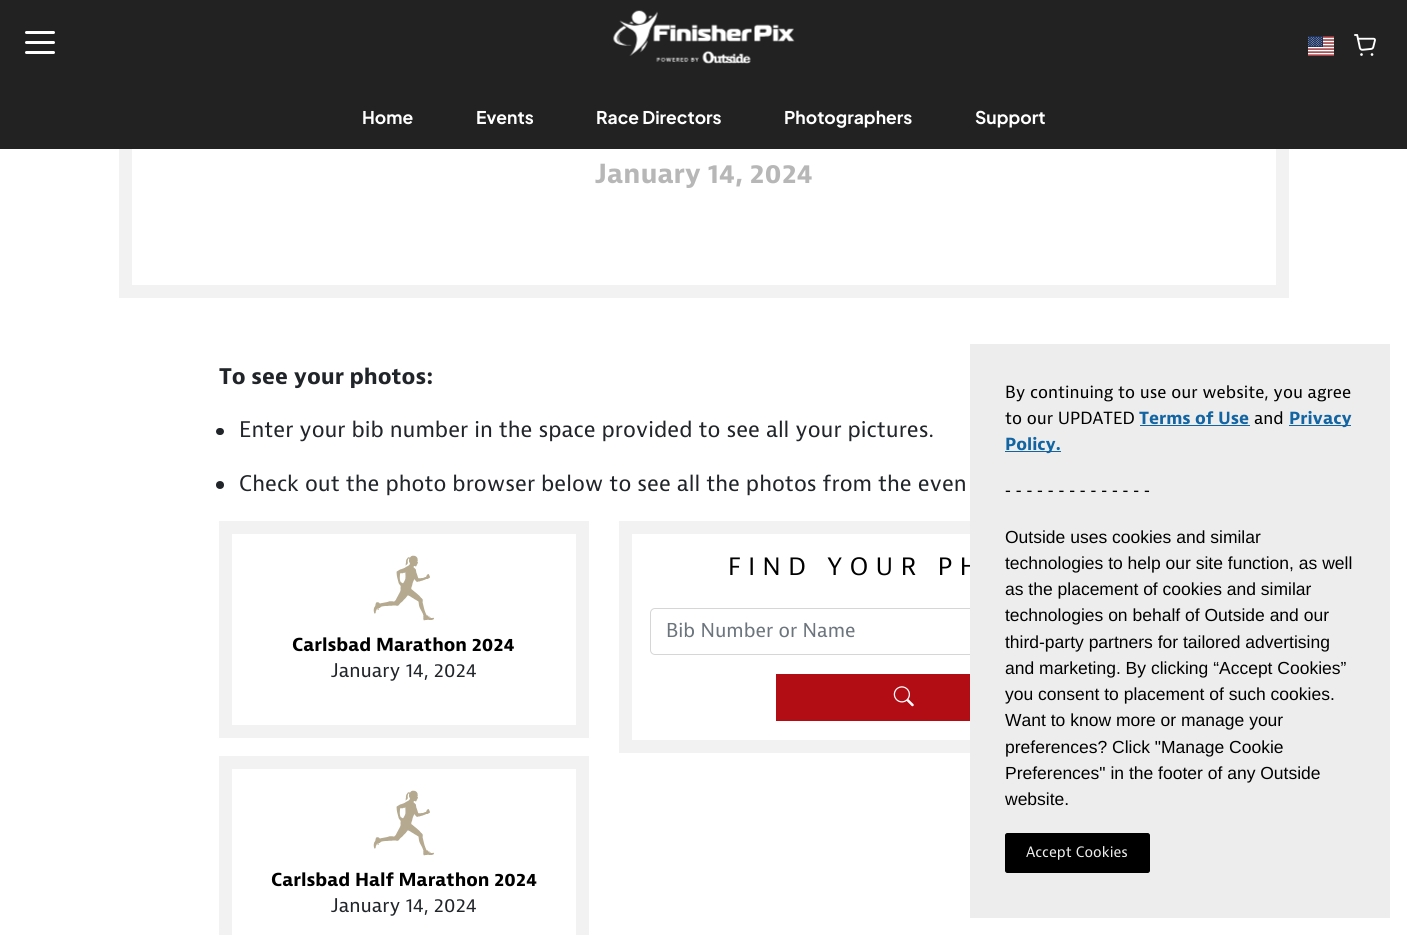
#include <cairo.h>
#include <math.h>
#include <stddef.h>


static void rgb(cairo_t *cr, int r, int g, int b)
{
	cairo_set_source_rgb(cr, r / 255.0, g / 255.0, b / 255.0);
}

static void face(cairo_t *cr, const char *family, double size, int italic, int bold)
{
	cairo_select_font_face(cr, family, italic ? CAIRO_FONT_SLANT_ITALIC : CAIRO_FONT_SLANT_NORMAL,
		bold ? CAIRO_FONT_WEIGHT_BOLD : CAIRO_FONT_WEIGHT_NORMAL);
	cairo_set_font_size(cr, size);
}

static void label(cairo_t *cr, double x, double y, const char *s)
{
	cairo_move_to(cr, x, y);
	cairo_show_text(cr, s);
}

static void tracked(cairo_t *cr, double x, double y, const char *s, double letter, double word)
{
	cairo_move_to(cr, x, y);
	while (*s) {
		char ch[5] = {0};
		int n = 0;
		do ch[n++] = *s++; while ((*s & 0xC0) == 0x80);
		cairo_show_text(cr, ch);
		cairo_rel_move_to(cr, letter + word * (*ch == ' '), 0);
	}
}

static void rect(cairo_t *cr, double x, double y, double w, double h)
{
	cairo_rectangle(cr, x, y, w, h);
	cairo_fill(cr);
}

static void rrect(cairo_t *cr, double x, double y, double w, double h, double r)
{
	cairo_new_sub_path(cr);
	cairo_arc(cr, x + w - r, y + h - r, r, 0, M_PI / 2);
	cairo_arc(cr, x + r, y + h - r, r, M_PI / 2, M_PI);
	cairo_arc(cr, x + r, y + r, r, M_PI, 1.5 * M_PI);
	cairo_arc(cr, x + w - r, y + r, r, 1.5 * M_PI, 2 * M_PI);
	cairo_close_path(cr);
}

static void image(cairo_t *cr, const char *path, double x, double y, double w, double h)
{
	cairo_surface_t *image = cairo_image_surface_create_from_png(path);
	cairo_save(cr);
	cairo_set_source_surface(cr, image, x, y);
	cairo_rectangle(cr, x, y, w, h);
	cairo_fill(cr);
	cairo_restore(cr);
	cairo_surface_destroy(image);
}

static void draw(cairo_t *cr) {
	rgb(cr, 255, 255, 255);
	cairo_paint(cr);
	cairo_rectangle(cr, 125.5, -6.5, 1157, 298);
	rgb(cr, 242, 242, 242);
	cairo_set_line_width(cr, 13);
	cairo_stroke(cr);
	rgb(cr, 34, 34, 34);
	rect(cr, 0, 0, 1407, 149);
	rgb(cr, 255, 255, 255);
	rrect(cr, 25, 31, 30, 3, 1.5);
	cairo_fill(cr);
	rrect(cr, 25, 41, 30, 3, 1.5);
	cairo_fill(cr);
	rrect(cr, 25, 51, 30, 3, 1.5);
	cairo_fill(cr);
	image(cr, "image0.png", 613, 10, 182, 54);
	image(cr, "image1.png", 1308, 36, 26, 20);
	image(cr, "image2.png", 1354, 34, 22, 22);
	face(cr, "Plus Jakarta Sans", 17.5, 0, 1);
	label(cr, 362, 124, "Home");
	label(cr, 476, 124, "Events");
	label(cr, 596, 124, "Race Directors");
	label(cr, 784, 124, "Photographers");
	label(cr, 975, 124, "Support");
	face(cr, "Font", 27.5, 0, 1);
	rgb(cr, 183, 183, 183);
	label(cr, 595, 183, "January 14, 2024");
	face(cr, "Font", 22.5, 0, 1);
	rgb(cr, 33, 37, 41);
	label(cr, 219, 384, "To see your photos:");
	rrect(cr, 216, 428, 8, 7, 3.5);
	cairo_fill(cr);
	face(cr, "Font", 22.5, 0, 0);
	label(cr, 239, 437, "Enter your bib number in the space provided to see all your pictures.");
	cairo_new_path(cr);
	cairo_arc(cr, 220, 485, 4, 0, 2 * M_PI);
	cairo_fill(cr);
	label(cr, 239, 491, "Check out the photo browser below to see all the photos from the even");
	cairo_rectangle(cr, 625.5, 527.5, 557, 219);
	rgb(cr, 242, 242, 242);
	cairo_stroke(cr);
	face(cr, "Font", 25, 0, 0);
	rgb(cr, 0, 0, 0);
	tracked(cr, 728, 575, "FIND YOUR PH", 7.5, 0);
	rrect(cr, 650.5, 608.5, 507, 46, 4.5);
	rgb(cr, 214, 214, 214);
	cairo_set_line_width(cr, 1);
	cairo_stroke(cr);
	face(cr, "Font", 20, 0, 0);
	rgb(cr, 108, 117, 125);
	label(cr, 666, 637, "Bib Number or Name");
	rgb(cr, 178, 13, 20);
	rect(cr, 776, 674, 194, 47);
	image(cr, "image3.png", 893, 686, 21, 21);
	cairo_rectangle(cr, 225.5, 527.5, 357, 204);
	rgb(cr, 242, 242, 242);
	cairo_set_line_width(cr, 13);
	cairo_stroke(cr);
	image(cr, "image4.png", 373, 555, 61, 66);
	face(cr, "Font", 18.75, 0, 1);
	rgb(cr, 0, 0, 0);
	label(cr, 292, 651, "Carlsbad Marathon 2024");
	face(cr, "Font", 19.75, 0, 0);
	rgb(cr, 33, 37, 41);
	label(cr, 331, 677, "January 14, 2024");
	cairo_rectangle(cr, 225.5, 762.5, 357, 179);
	rgb(cr, 242, 242, 242);
	cairo_stroke(cr);
	image(cr, "image5.png", 373, 790, 61, 66);
	face(cr, "Font", 18.75, 0, 1);
	rgb(cr, 0, 0, 0);
	label(cr, 271, 886, "Carlsbad Half Marathon 2024");
	face(cr, "Font", 19.75, 0, 0);
	rgb(cr, 33, 37, 41);
	label(cr, 331, 912, "January 14, 2024");
	rgb(cr, 237, 237, 237);
	rect(cr, 970, 344, 420, 574);
	face(cr, "Font", 17.5, 0, 0);
	rgb(cr, 0, 0, 0);
	label(cr, 1005, 398, "By continuing to use our website, you agree");
	label(cr, 1005, 424, "to our UPDATED");
	face(cr, "Font", 17.5, 0, 1);
	rgb(cr, 18, 100, 163);
	label(cr, 1139, 424, "Terms of Use");
	rect(cr, 1140, 425, 110, 1);
	face(cr, "Font", 17.5, 0, 0);
	rgb(cr, 0, 0, 0);
	label(cr, 1254, 424, "and");
	rgb(cr, 18, 100, 163);
	rect(cr, 1289, 425, 62, 1);
	face(cr, "Font", 17.5, 0, 1);
	label(cr, 1289, 424, "Privacy");
	rect(cr, 1005, 451, 56, 1);
	label(cr, 1005, 450, "Policy.");
	face(cr, "Liberation Sans", 17.5, 0, 0);
	rgb(cr, 0, 0, 0);
	label(cr, 1005, 496, "- - - - - - - - - - - - - -");
	label(cr, 1005, 543, "Outside uses cookies and similar");
	label(cr, 1005, 569, "technologies to help our site function, as well");
	label(cr, 1005, 595, "as the placement of cookies and similar");
	label(cr, 1005, 621, "technologies on behalf of Outside and our");
	label(cr, 1005, 648, "third-party partners for tailored advertising");
	label(cr, 1005, 674, "and marketing. By clicking “Accept Cookies”");
	label(cr, 1005, 700, "you consent to placement of such cookies.");
	label(cr, 1005, 726, "Want to know more or manage your");
	label(cr, 1005, 753, "preferences? Click \"Manage Cookie");
	label(cr, 1005, 779, "Preferences\" in the footer of any Outside");
	label(cr, 1005, 805, "website.");
	rrect(cr, 1005.5, 833.5, 144, 39, 2);
	cairo_fill_preserve(cr);
	cairo_set_line_width(cr, 1);
	cairo_stroke(cr);
	face(cr, "Font", 15, 0, 0);
	rgb(cr, 237, 237, 237);
	label(cr, 1026, 857, "Accept Cookies");
}

int main(void) {
	cairo_surface_t *surface = cairo_image_surface_create(CAIRO_FORMAT_RGB24, 1407, 935);
	cairo_t *cr = cairo_create(surface);
	cairo_font_options_t *options = cairo_font_options_create();
	cairo_font_options_set_hint_metrics(options, CAIRO_HINT_METRICS_OFF);
	cairo_font_options_set_hint_style(options, CAIRO_HINT_STYLE_NONE);
	cairo_set_font_options(cr, options);
	cairo_set_miter_limit(cr, 4);
	draw(cr);
	cairo_surface_write_to_png(surface, "render.png");
	cairo_font_options_destroy(options);
	cairo_destroy(cr);
	cairo_surface_destroy(surface);
	return 0;
}
